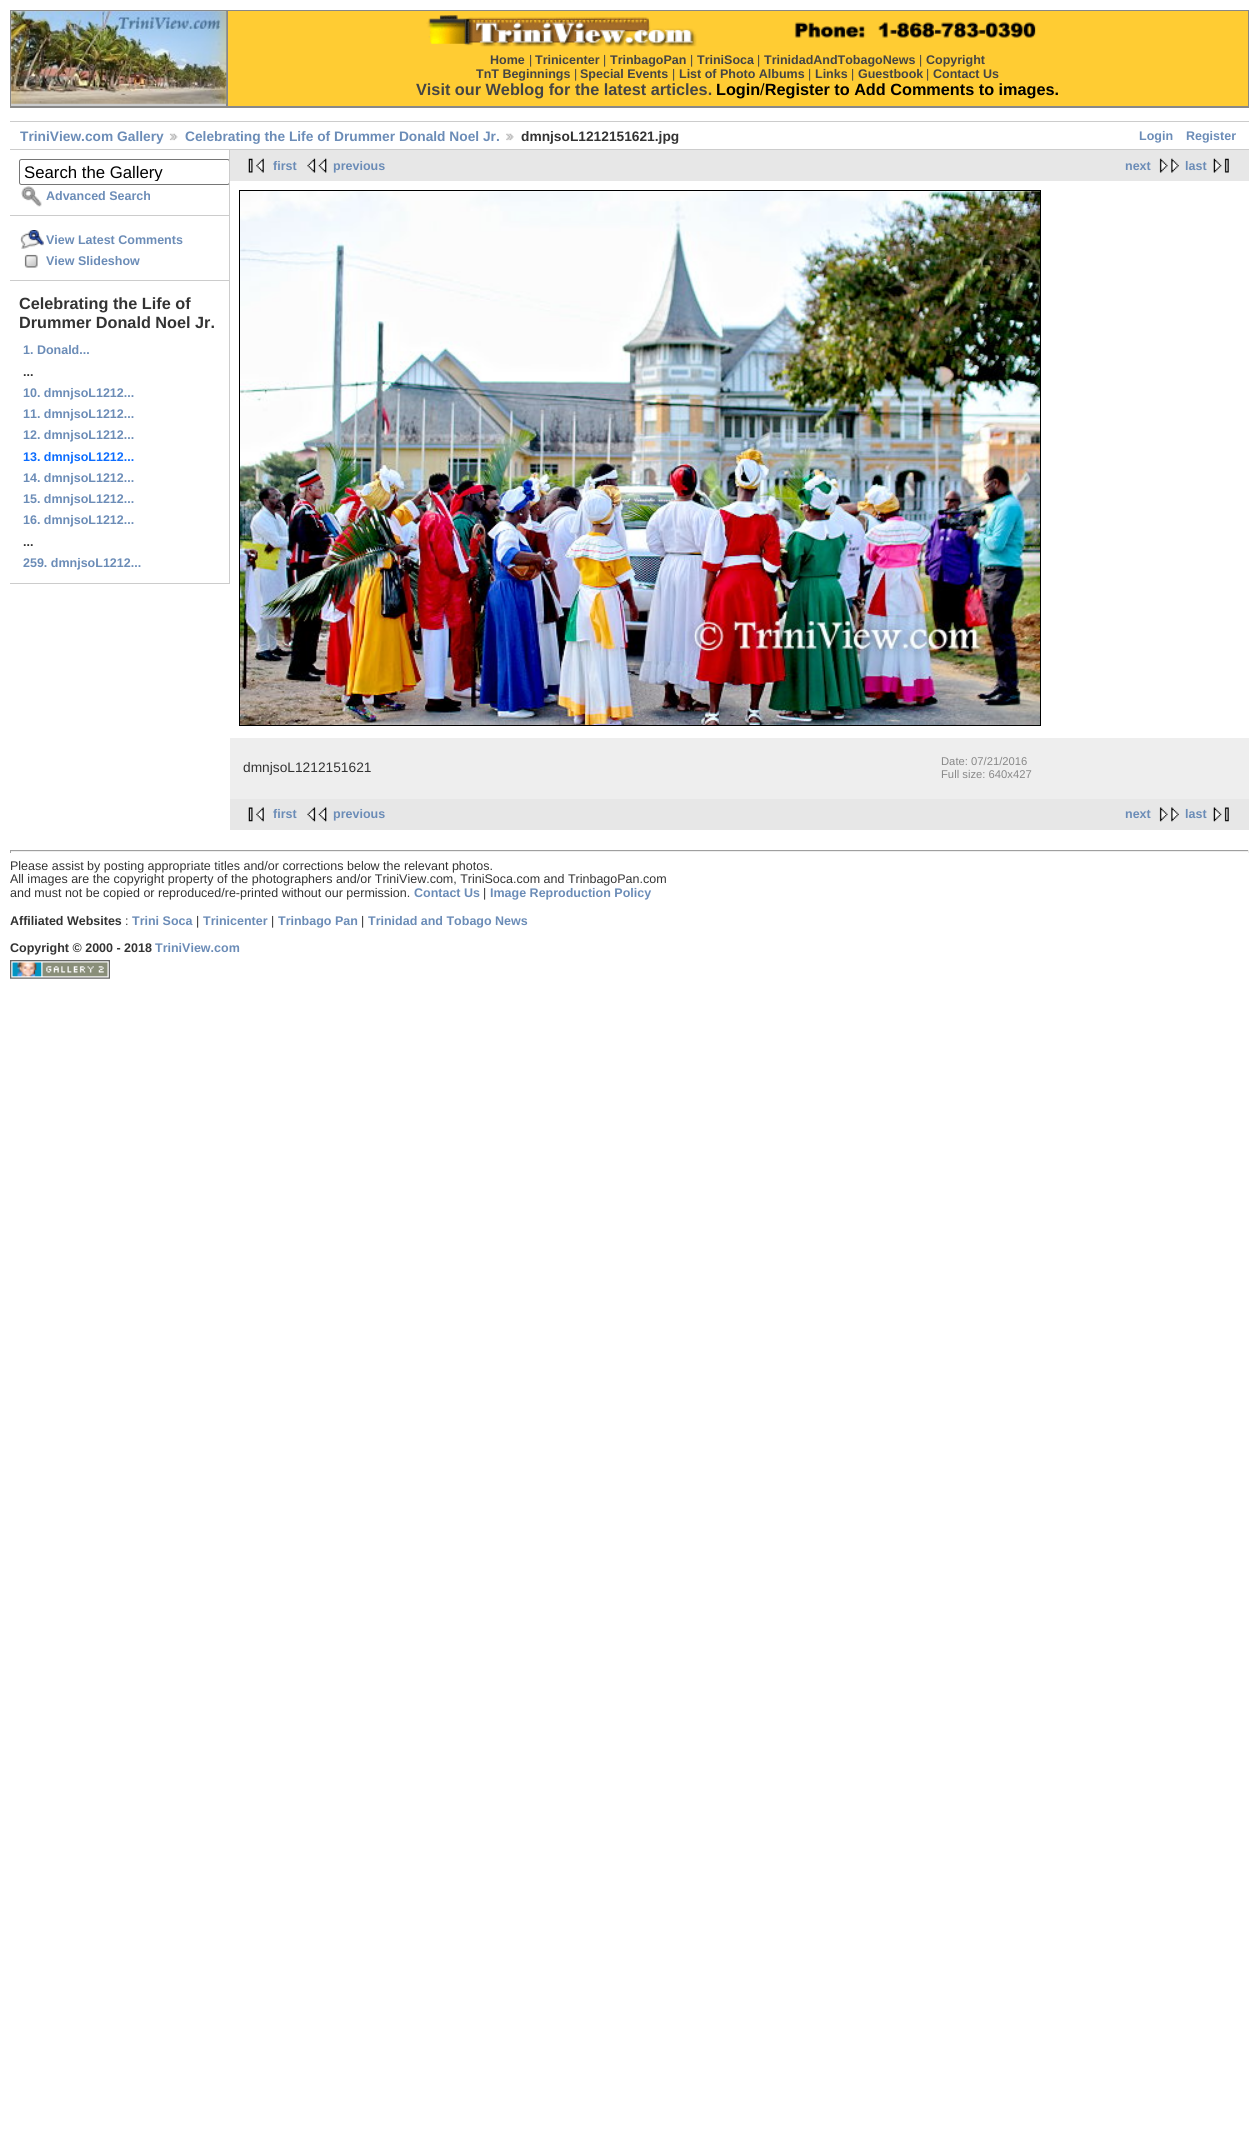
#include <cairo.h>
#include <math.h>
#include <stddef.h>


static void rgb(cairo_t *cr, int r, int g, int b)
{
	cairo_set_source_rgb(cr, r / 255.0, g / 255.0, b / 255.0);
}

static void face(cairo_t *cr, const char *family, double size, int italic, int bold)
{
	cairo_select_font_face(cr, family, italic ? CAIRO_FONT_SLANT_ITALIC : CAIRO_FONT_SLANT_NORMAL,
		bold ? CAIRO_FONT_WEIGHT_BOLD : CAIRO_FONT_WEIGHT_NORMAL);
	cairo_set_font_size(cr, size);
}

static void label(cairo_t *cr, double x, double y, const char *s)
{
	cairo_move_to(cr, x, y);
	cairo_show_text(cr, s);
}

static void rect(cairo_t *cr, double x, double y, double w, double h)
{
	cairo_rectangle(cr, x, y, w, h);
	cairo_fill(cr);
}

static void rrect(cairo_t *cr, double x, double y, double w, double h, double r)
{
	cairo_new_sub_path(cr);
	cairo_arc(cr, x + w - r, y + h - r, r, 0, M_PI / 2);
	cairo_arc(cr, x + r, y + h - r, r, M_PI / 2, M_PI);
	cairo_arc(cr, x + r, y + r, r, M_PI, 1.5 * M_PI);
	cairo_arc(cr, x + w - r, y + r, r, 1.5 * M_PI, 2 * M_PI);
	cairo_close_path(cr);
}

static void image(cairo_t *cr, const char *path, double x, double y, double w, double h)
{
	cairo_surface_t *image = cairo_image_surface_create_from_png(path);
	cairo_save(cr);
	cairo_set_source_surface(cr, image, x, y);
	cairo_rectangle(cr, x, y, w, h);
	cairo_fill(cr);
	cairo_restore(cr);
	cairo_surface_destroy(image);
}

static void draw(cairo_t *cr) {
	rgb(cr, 255, 255, 255);
	cairo_paint(cr);
	rgb(cr, 136, 136, 136);
	rect(cr, 10, 10, 1239, 98);
	rgb(cr, 204, 204, 204);
	rect(cr, 11, 11, 215, 95);
	image(cr, "image0.png", 11, 11, 216, 93);
	rgb(cr, 255, 204, 51);
	rect(cr, 228, 11, 1020, 95);
	image(cr, "image1.png", 426, 15, 610, 32);
	face(cr, "Liberation Sans", 12.5, 0, 1);
	rgb(cr, 68, 68, 68);
	label(cr, 490, 64, "Home");
	face(cr, "Liberation Sans", 12.5, 0, 0);
	label(cr, 529, 64, "|");
	face(cr, "Liberation Sans", 12.5, 0, 1);
	label(cr, 535, 64, "Trinicenter");
	face(cr, "Liberation Sans", 12.5, 0, 0);
	label(cr, 603, 64, "|");
	face(cr, "Liberation Sans", 12.5, 0, 1);
	label(cr, 610, 64, "TrinbagoPan");
	face(cr, "Liberation Sans", 12.5, 0, 0);
	label(cr, 690, 64, "|");
	face(cr, "Liberation Sans", 12.5, 0, 1);
	label(cr, 697, 64, "TriniSoca");
	face(cr, "Liberation Sans", 12.5, 0, 0);
	label(cr, 757, 64, "|");
	face(cr, "Liberation Sans", 12.5, 0, 1);
	label(cr, 764, 64, "TrinidadAndTobagoNews");
	face(cr, "Liberation Sans", 12.5, 0, 0);
	label(cr, 919, 64, "|");
	face(cr, "Liberation Sans", 12.5, 0, 1);
	label(cr, 926, 64, "Copyright");
	label(cr, 476, 78, "TnT Beginnings");
	face(cr, "Liberation Sans", 12.5, 0, 0);
	label(cr, 574, 78, "|");
	face(cr, "Liberation Sans", 12.5, 0, 1);
	label(cr, 580, 78, "Special Events");
	face(cr, "Liberation Sans", 12.5, 0, 0);
	label(cr, 672, 78, "|");
	face(cr, "Liberation Sans", 12.5, 0, 1);
	label(cr, 679, 78, "List of Photo Albums");
	face(cr, "Liberation Sans", 12.5, 0, 0);
	label(cr, 808, 78, "|");
	face(cr, "Liberation Sans", 12.5, 0, 1);
	label(cr, 815, 78, "Links");
	face(cr, "Liberation Sans", 12.5, 0, 0);
	label(cr, 851, 78, "|");
	face(cr, "Liberation Sans", 12.5, 0, 1);
	label(cr, 858, 78, "Guestbook");
	face(cr, "Liberation Sans", 12.5, 0, 0);
	label(cr, 926, 78, "|");
	face(cr, "Liberation Sans", 12.5, 0, 1);
	label(cr, 933, 78, "Contact Us");
	face(cr, "Liberation Sans", 16.25, 0, 1);
	label(cr, 416, 95, "Visit our Weblog for the latest articles.");
	rgb(cr, 0, 0, 0);
	label(cr, 716, 95, "Login Register to Add Comments to images.");
	face(cr, "Liberation Sans", 16.25, 0, 0);
	label(cr, 760, 95, "/");
	rgb(cr, 204, 204, 204);
	rect(cr, 10, 121, 1239, 1);
	rect(cr, 10, 149, 1239, 1);
	face(cr, "Liberation Sans", 13.75, 0, 1);
	rgb(cr, 107, 140, 183);
	label(cr, 20, 141, "TriniView.com Gallery");
	image(cr, "image2.png", 169, 133, 9, 8);
	label(cr, 185, 141, "Celebrating the Life of Drummer Donald Noel Jr.");
	image(cr, "image3.png", 506, 133, 8, 8);
	rgb(cr, 51, 51, 51);
	label(cr, 521, 141, "dmnjsoL1212151621.jpg");
	face(cr, "Liberation Sans", 12.5, 0, 1);
	rgb(cr, 107, 140, 183);
	label(cr, 1139, 140, "Login");
	label(cr, 1186, 140, "Register");
	rgb(cr, 204, 204, 204);
	rect(cr, 229, 150, 1, 434);
	rect(cr, 10, 215, 219, 1);
	cairo_save(cr);
	cairo_rectangle(cr, 10, 150, 219, 434);
	cairo_clip(cr);
	rrect(cr, 19.5, 159.5, 210, 25, 2);
	rgb(cr, 118, 118, 118);
	cairo_set_line_width(cr, 1);
	cairo_stroke(cr);
	cairo_restore(cr);
	cairo_save(cr);
	cairo_rectangle(cr, 24, 163, 201, 18);
	cairo_clip(cr);
	face(cr, "Liberation Sans", 16.75, 0, 0);
	rgb(cr, 0, 0, 0);
	label(cr, 24, 178, "Search the Gallery");
	cairo_restore(cr);
	image(cr, "image4.png", 21, 186, 21, 21);
	rgb(cr, 107, 140, 183);
	label(cr, 46, 200, "Advanced Search");
	rgb(cr, 204, 204, 204);
	rect(cr, 10, 280, 219, 1);
	image(cr, "image5.png", 20, 230, 24, 19);
	rgb(cr, 107, 140, 183);
	label(cr, 46, 244, "View Latest Comments");
	image(cr, "image6.png", 24, 254, 14, 14);
	label(cr, 46, 265, "View Slideshow");
	rgb(cr, 204, 204, 204);
	rect(cr, 10, 583, 219, 1);
	face(cr, "Liberation Sans", 16.25, 0, 1);
	rgb(cr, 51, 51, 51);
	label(cr, 19, 309, "Celebrating the Life of");
	label(cr, 19, 328, "Drummer Donald Noel Jr.");
	face(cr, "Liberation Sans", 12.5, 0, 1);
	rgb(cr, 107, 140, 183);
	label(cr, 23, 354, "1. Donald...");
	rgb(cr, 51, 51, 51);
	label(cr, 23, 376, "...");
	rgb(cr, 107, 140, 183);
	label(cr, 23, 397, "10. dmnjsoL1212...");
	label(cr, 23, 418, "11. dmnjsoL1212...");
	label(cr, 23, 439, "12. dmnjsoL1212...");
	rgb(cr, 11, 108, 255);
	label(cr, 23, 461, "13. dmnjsoL1212...");
	rgb(cr, 107, 140, 183);
	label(cr, 23, 482, "14. dmnjsoL1212...");
	label(cr, 23, 503, "15. dmnjsoL1212...");
	label(cr, 23, 524, "16. dmnjsoL1212...");
	rgb(cr, 51, 51, 51);
	label(cr, 23, 546, "...");
	rgb(cr, 107, 140, 183);
	label(cr, 23, 567, "259. dmnjsoL1212...");
	rgb(cr, 231, 231, 231);
	rect(cr, 230, 150, 1019, 31);
	image(cr, "image7.png", 248, 158, 16, 15);
	rgb(cr, 107, 140, 183);
	label(cr, 273, 170, "first");
	image(cr, "image8.png", 307, 158, 20, 15);
	label(cr, 333, 170, "previous");
	label(cr, 1125, 170, "next");
	image(cr, "image9.png", 1159, 158, 20, 15);
	label(cr, 1185, 170, "last");
	image(cr, "image10.png", 1213, 158, 16, 15);
	cairo_rectangle(cr, 239.5, 190.5, 801, 535);
	rgb(cr, 0, 0, 0);
	cairo_set_line_width(cr, 1);
	cairo_stroke(cr);
	image(cr, "image11.png", 240, 191, 800, 534);
	rgb(cr, 238, 238, 238);
	rect(cr, 230, 738, 1019, 61);
	face(cr, "Liberation Sans", 13.75, 0, 0);
	rgb(cr, 51, 51, 51);
	label(cr, 243, 772, "dmnjsoL1212151621");
	face(cr, "Liberation Sans", 11.25, 0, 0);
	rgb(cr, 136, 136, 136);
	label(cr, 941, 765, "Date: 07/21/2016");
	label(cr, 941, 778, "Full size: 640x427");
	rgb(cr, 231, 231, 231);
	rect(cr, 230, 799, 1019, 31);
	image(cr, "image12.png", 248, 807, 16, 15);
	face(cr, "Liberation Sans", 12.5, 0, 1);
	rgb(cr, 107, 140, 183);
	label(cr, 273, 818, "first");
	image(cr, "image13.png", 307, 807, 20, 15);
	label(cr, 333, 818, "previous");
	label(cr, 1125, 818, "next");
	image(cr, "image14.png", 1159, 807, 20, 15);
	label(cr, 1185, 818, "last");
	image(cr, "image15.png", 1213, 807, 16, 15);
	rgb(cr, 159, 159, 159);
	rect(cr, 10, 850, 1239, 1);
	rgb(cr, 238, 238, 238);
	rect(cr, 1248, 850, 1, 3);
	rect(cr, 10, 851, 1239, 1);
	rgb(cr, 159, 159, 159);
	rect(cr, 10, 850, 1, 3);
	face(cr, "Liberation Sans", 12.5, 0, 0);
	rgb(cr, 51, 51, 51);
	label(cr, 10, 870, "Please assist by posting appropriate titles and/or corrections below the relevant photos.");
	label(cr, 10, 883, "All images are the copyright property of the photographers and/or TriniView.com, TriniSoca.com and TrinbagoPan.com");
	label(cr, 10, 897, "and must not be copied or reproduced/re-printed without our permission.");
	face(cr, "Liberation Sans", 12.5, 0, 1);
	rgb(cr, 107, 140, 183);
	label(cr, 414, 897, "Contact Us");
	face(cr, "Liberation Sans", 12.5, 0, 0);
	rgb(cr, 51, 51, 51);
	label(cr, 483, 897, "|");
	face(cr, "Liberation Sans", 12.5, 0, 1);
	rgb(cr, 107, 140, 183);
	label(cr, 490, 897, "Image Reproduction Policy");
	rgb(cr, 51, 51, 51);
	label(cr, 10, 925, "Affiliated Websites");
	face(cr, "Liberation Sans", 12.5, 0, 0);
	label(cr, 125, 925, ":");
	face(cr, "Liberation Sans", 12.5, 0, 1);
	rgb(cr, 107, 140, 183);
	label(cr, 132, 925, "Trini Soca");
	face(cr, "Liberation Sans", 12.5, 0, 0);
	rgb(cr, 51, 51, 51);
	label(cr, 196, 925, "|");
	face(cr, "Liberation Sans", 12.5, 0, 1);
	rgb(cr, 107, 140, 183);
	label(cr, 203, 925, "Trinicenter");
	face(cr, "Liberation Sans", 12.5, 0, 0);
	rgb(cr, 51, 51, 51);
	label(cr, 271, 925, "|");
	face(cr, "Liberation Sans", 12.5, 0, 1);
	rgb(cr, 107, 140, 183);
	label(cr, 278, 925, "Trinbago Pan");
	face(cr, "Liberation Sans", 12.5, 0, 0);
	rgb(cr, 51, 51, 51);
	label(cr, 361, 925, "|");
	face(cr, "Liberation Sans", 12.5, 0, 1);
	rgb(cr, 107, 140, 183);
	label(cr, 368, 925, "Trinidad and Tobago News");
	rgb(cr, 51, 51, 51);
	label(cr, 10, 952, "Copyright © 2000 - 2018");
	rgb(cr, 107, 140, 183);
	label(cr, 155, 952, "TriniView.com");
	image(cr, "image16.png", 10, 960, 100, 19);
}

int main(void) {
	cairo_surface_t *surface = cairo_image_surface_create(CAIRO_FORMAT_RGB24, 1258, 2155);
	cairo_t *cr = cairo_create(surface);
	cairo_font_options_t *options = cairo_font_options_create();
	cairo_font_options_set_hint_metrics(options, CAIRO_HINT_METRICS_OFF);
	cairo_font_options_set_hint_style(options, CAIRO_HINT_STYLE_NONE);
	cairo_set_font_options(cr, options);
	cairo_set_miter_limit(cr, 4);
	draw(cr);
	cairo_surface_write_to_png(surface, "render.png");
	cairo_font_options_destroy(options);
	cairo_destroy(cr);
	cairo_surface_destroy(surface);
	return 0;
}
